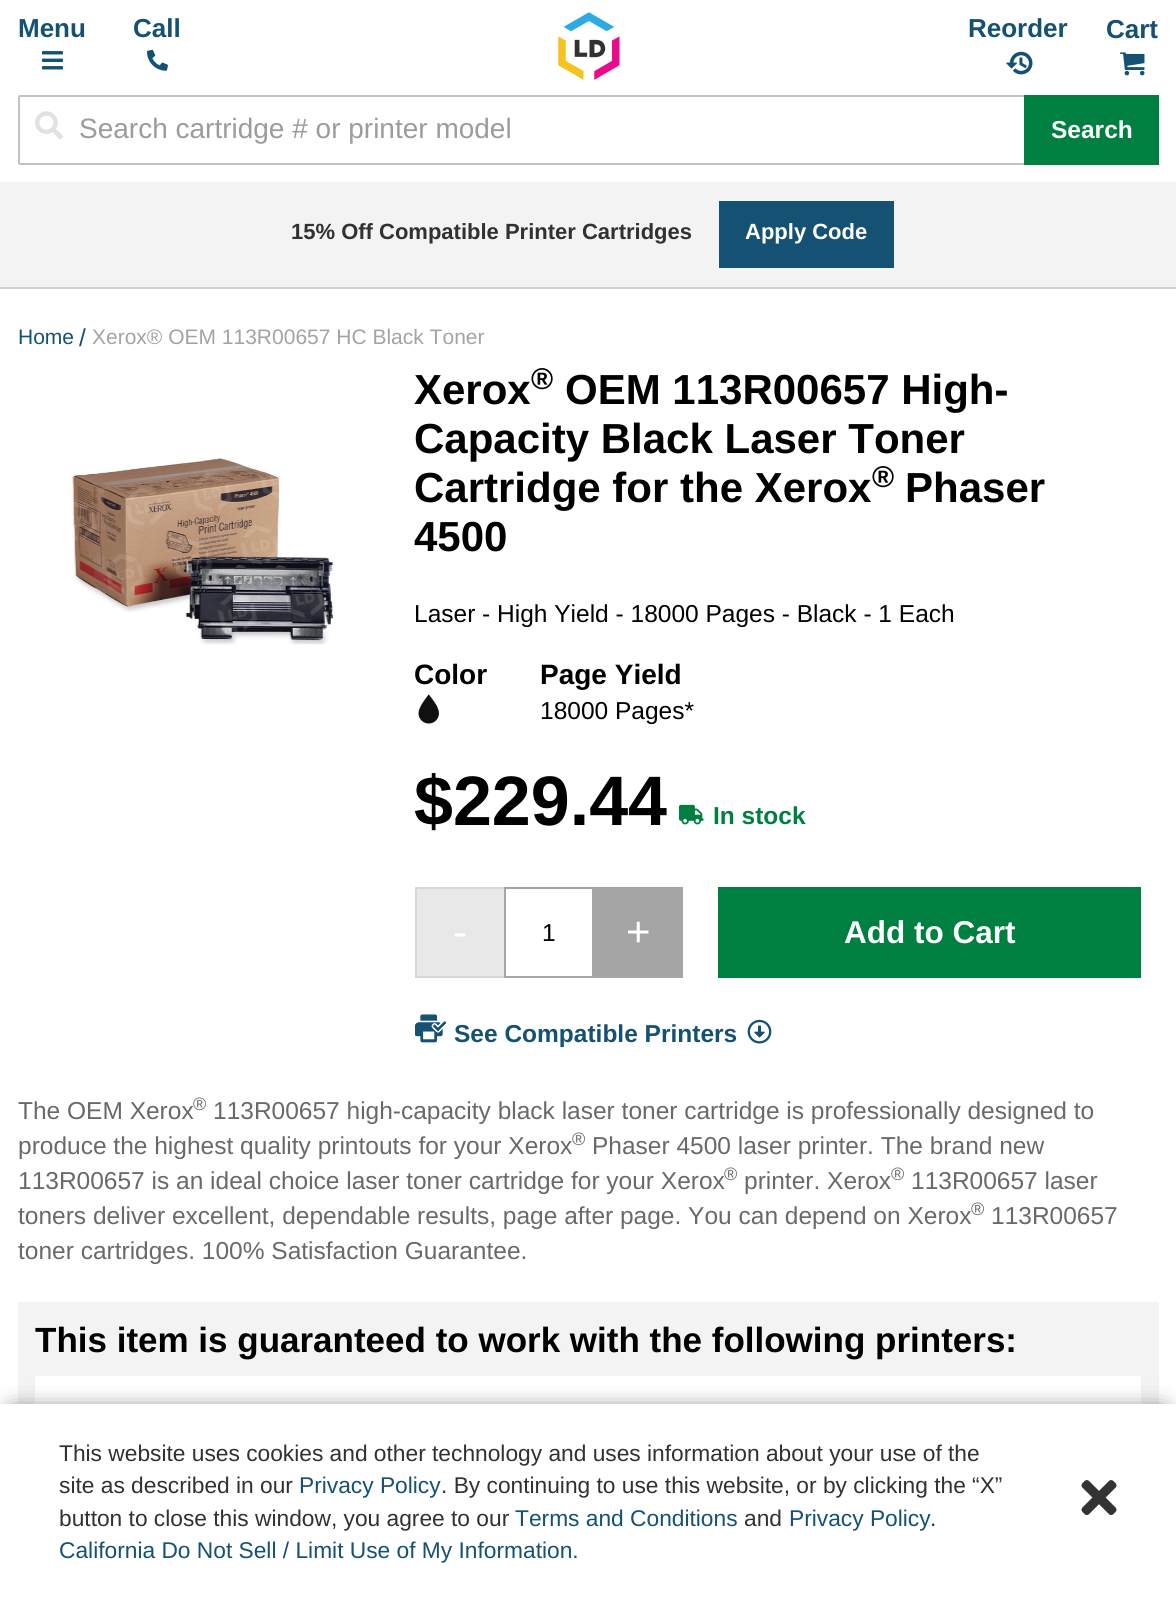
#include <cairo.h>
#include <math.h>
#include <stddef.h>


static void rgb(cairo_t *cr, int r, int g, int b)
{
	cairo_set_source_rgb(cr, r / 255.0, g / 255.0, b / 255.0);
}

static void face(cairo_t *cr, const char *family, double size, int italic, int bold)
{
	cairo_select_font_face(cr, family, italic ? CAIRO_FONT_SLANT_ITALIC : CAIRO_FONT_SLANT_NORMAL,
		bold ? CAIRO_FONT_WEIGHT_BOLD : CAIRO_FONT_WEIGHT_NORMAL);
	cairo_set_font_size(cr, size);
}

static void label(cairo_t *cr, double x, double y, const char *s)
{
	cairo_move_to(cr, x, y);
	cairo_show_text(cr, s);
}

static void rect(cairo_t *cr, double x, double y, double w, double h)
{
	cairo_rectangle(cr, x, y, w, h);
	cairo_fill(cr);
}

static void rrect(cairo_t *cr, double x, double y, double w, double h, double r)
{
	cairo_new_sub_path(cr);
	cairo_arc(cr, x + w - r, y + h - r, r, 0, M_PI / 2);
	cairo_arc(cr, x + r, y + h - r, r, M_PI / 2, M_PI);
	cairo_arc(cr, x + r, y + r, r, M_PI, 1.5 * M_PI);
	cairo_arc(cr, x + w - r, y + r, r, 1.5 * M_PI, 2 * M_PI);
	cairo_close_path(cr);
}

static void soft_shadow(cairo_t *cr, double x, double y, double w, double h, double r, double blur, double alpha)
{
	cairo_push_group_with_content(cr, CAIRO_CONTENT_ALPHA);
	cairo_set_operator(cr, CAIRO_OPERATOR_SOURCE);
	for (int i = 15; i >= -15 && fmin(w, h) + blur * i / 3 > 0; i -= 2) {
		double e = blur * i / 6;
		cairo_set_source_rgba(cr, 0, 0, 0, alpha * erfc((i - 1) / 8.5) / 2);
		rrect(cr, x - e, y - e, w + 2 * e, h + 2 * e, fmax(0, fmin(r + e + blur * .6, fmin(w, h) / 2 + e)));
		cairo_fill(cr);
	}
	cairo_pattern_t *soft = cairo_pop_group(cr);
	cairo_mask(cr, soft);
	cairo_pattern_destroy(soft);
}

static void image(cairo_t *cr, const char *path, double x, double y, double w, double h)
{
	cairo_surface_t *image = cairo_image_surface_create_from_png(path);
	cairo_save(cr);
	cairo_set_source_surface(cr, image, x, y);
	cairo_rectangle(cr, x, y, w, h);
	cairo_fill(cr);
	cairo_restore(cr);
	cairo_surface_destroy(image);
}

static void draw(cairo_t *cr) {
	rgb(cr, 255, 255, 255);
	cairo_paint(cr);
	rgb(cr, 209, 209, 209);
	rect(cr, 0, 287, 1176, 2);
	face(cr, "Liberation Sans", 26, 0, 1);
	rgb(cr, 20, 81, 115);
	label(cr, 18, 37, "Menu");
	image(cr, "image0.png", 42, 51, 21, 19);
	label(cr, 133, 37, "Call");
	image(cr, "image1.png", 147, 49, 21, 22);
	image(cr, "image2.png", 558, 12, 62, 68);
	label(cr, 968, 37, "Reorder");
	image(cr, "image3.png", 1006, 51, 27, 24);
	label(cr, 1106, 38, "Cart");
	image(cr, "image4.png", 1120, 52, 25, 24);
	rrect(cr, 19, 96, 1139, 68, 1);
	rgb(cr, 194, 194, 194);
	cairo_stroke(cr);
	image(cr, "image5.png", 35, 111, 28, 29);
	face(cr, "Liberation Sans", 28, 0, 0);
	rgb(cr, 156, 156, 156);
	label(cr, 79, 138, "Search cartridge # or printer model");
	rgb(cr, 0, 128, 64);
	rect(cr, 1024, 95, 135, 70);
	face(cr, "Liberation Sans", 24.5, 0, 1);
	rgb(cr, 255, 255, 255);
	label(cr, 1051, 138, "Search");
	rgb(cr, 243, 243, 243);
	rect(cr, 0, 182, 1176, 105);
	face(cr, "Liberation Sans", 22, 0, 1);
	rgb(cr, 49, 49, 49);
	label(cr, 291, 239, "15% Off Compatible Printer Cartridges");
	rgb(cr, 21, 81, 115);
	rect(cr, 719, 201, 175, 67);
	rgb(cr, 255, 255, 255);
	label(cr, 745, 239, "Apply Code");
	face(cr, "Liberation Sans", 21, 0, 0);
	rgb(cr, 20, 81, 115);
	label(cr, 18, 344, "Home");
	face(cr, "Liberation Sans", 24.5, 0, 0);
	label(cr, 79, 346, "/");
	face(cr, "Liberation Sans", 21, 0, 0);
	rgb(cr, 163, 163, 163);
	label(cr, 92, 344, "Xerox® OEM 113R00657 HC Black Toner");
	image(cr, "image6.png", 71, 457, 264, 188);
	face(cr, "Liberation Sans", 42, 0, 1);
	rgb(cr, 0, 0, 0);
	label(cr, 414, 404, "Xerox");
	face(cr, "Liberation Sans", 30, 0, 1);
	label(cr, 531, 389, "®");
	face(cr, "Liberation Sans", 42, 0, 1);
	label(cr, 565, 404, "OEM 113R00657 High-");
	label(cr, 414, 453, "Capacity Black Laser Toner");
	label(cr, 414, 502, "Cartridge for the Xerox");
	face(cr, "Liberation Sans", 30, 0, 1);
	label(cr, 872, 487, "®");
	face(cr, "Liberation Sans", 42, 0, 1);
	label(cr, 905, 502, "Phaser");
	label(cr, 414, 551, "4500");
	face(cr, "Liberation Sans", 24.5, 0, 0);
	label(cr, 414, 622, "Laser - High Yield - 18000 Pages - Black - 1 Each");
	face(cr, "Liberation Sans", 28, 0, 1);
	label(cr, 414, 684, "Color");
	image(cr, "image7.png", 418, 694, 21, 30);
	label(cr, 540, 684, "Page Yield");
	face(cr, "Liberation Sans", 24.5, 0, 0);
	label(cr, 540, 719, "18000 Pages*");
	face(cr, "Liberation Sans", 70, 0, 1);
	label(cr, 414, 825, "$229.44");
	image(cr, "image8.png", 679, 804, 25, 21);
	face(cr, "Liberation Sans", 24.5, 0, 1);
	rgb(cr, 0, 128, 64);
	label(cr, 713, 824, "In stock");
	cairo_set_source_rgba(cr, 0.647, 0.647, 0.647, 0.25);
	rect(cr, 415, 887, 89, 91);
	cairo_rectangle(cr, 505, 888, 89, 89);
	rgb(cr, 165, 165, 165);
	cairo_stroke(cr);
	cairo_rectangle(cr, 416, 888, 89, 89);
	cairo_set_source_rgba(cr, 0.647, 0.647, 0.647, 0.25);
	cairo_stroke(cr);
	face(cr, "Liberation Sans", 42, 0, 0);
	rgb(cr, 255, 255, 255);
	label(cr, 453, 946, "-");
	face(cr, "Liberation Sans", 24.5, 0, 0);
	rgb(cr, 0, 0, 0);
	label(cr, 542, 941, "1");
	rgb(cr, 165, 165, 165);
	rect(cr, 592, 887, 91, 91);
	face(cr, "Liberation Sans", 42, 0, 0);
	rgb(cr, 255, 255, 255);
	label(cr, 626, 946, "+");
	rgb(cr, 0, 128, 64);
	rect(cr, 718, 887, 423, 91);
	face(cr, "Liberation Sans", 31.5, 0, 1);
	rgb(cr, 255, 255, 255);
	label(cr, 844, 943, "Add to Cart");
	image(cr, "image9.png", 415, 1014, 31, 29);
	face(cr, "Liberation Sans", 24.5, 0, 1);
	rgb(cr, 20, 81, 115);
	label(cr, 454, 1042, "See Compatible Printers");
	image(cr, "image10.png", 747, 1019, 25, 25);
	face(cr, "Liberation Sans", 24.5, 0, 0);
	rgb(cr, 105, 105, 105);
	label(cr, 18, 1119, "The OEM Xerox");
	face(cr, "Liberation Sans", 18, 0, 0);
	label(cr, 193, 1110, "®");
	face(cr, "Liberation Sans", 24.5, 0, 0);
	label(cr, 213, 1119, "113R00657 high-capacity black laser toner cartridge is professionally designed to");
	label(cr, 18, 1154, "produce the highest quality printouts for your Xerox");
	face(cr, "Liberation Sans", 18, 0, 0);
	label(cr, 572, 1145, "®");
	face(cr, "Liberation Sans", 24.5, 0, 0);
	label(cr, 592, 1154, "Phaser 4500 laser printer. The brand new");
	label(cr, 18, 1189, "113R00657 is an ideal choice laser toner cartridge for your Xerox");
	face(cr, "Liberation Sans", 18, 0, 0);
	label(cr, 724, 1180, "®");
	face(cr, "Liberation Sans", 24.5, 0, 0);
	label(cr, 744, 1189, "printer. Xerox");
	face(cr, "Liberation Sans", 18, 0, 0);
	label(cr, 891, 1180, "®");
	face(cr, "Liberation Sans", 24.5, 0, 0);
	label(cr, 911, 1189, "113R00657 laser");
	label(cr, 18, 1224, "toners deliver excellent, dependable results, page after page. You can depend on Xerox");
	face(cr, "Liberation Sans", 18, 0, 0);
	label(cr, 971, 1215, "®");
	face(cr, "Liberation Sans", 24.5, 0, 0);
	label(cr, 991, 1224, "113R00657");
	label(cr, 18, 1259, "toner cartridges. 100% Satisfaction Guarantee.");
	rgb(cr, 243, 243, 243);
	rect(cr, 18, 1302, 1141, 102);
	face(cr, "Liberation Sans", 35, 0, 1);
	rgb(cr, 0, 0, 0);
	label(cr, 35, 1352, "This item is guaranteed to work with the following printers:");
	rgb(cr, 255, 255, 255);
	rect(cr, 35, 1376, 1106, 28);
	rgb(cr, 0, 0, 0);
	soft_shadow(cr, 12, 1411, 1152, 175, 0, 11.5, 0.64);
	rgb(cr, 255, 255, 255);
	rect(cr, 0, 1404, 1176, 199);
	face(cr, "Liberation Sans", 22.75, 0, 0);
	rgb(cr, 49, 49, 49);
	label(cr, 59, 1461, "This website uses cookies and other technology and uses information about your use of the");
	label(cr, 59, 1493, "site as described in our");
	rgb(cr, 20, 81, 115);
	label(cr, 299, 1493, "Privacy Policy");
	rgb(cr, 49, 49, 49);
	label(cr, 441, 1493, ". By continuing to use this website, or by clicking the “X”");
	label(cr, 59, 1526, "button to close this window, you agree to our");
	rgb(cr, 20, 81, 115);
	label(cr, 515, 1526, "Terms and Conditions");
	rgb(cr, 49, 49, 49);
	label(cr, 744, 1526, "and");
	rgb(cr, 20, 81, 115);
	label(cr, 789, 1526, "Privacy Policy");
	rgb(cr, 49, 49, 49);
	label(cr, 930, 1526, ".");
	rgb(cr, 20, 81, 115);
	label(cr, 59, 1558, "California Do Not Sell / Limit Use of My Information.");
	image(cr, "image11.png", 1081, 1480, 36, 35);
}

int main(void) {
	cairo_surface_t *surface = cairo_image_surface_create(CAIRO_FORMAT_RGB24, 1176, 1603);
	cairo_t *cr = cairo_create(surface);
	cairo_font_options_t *options = cairo_font_options_create();
	cairo_font_options_set_hint_metrics(options, CAIRO_HINT_METRICS_OFF);
	cairo_font_options_set_hint_style(options, CAIRO_HINT_STYLE_NONE);
	cairo_set_font_options(cr, options);
	cairo_set_miter_limit(cr, 4);
	draw(cr);
	cairo_surface_write_to_png(surface, "render.png");
	cairo_font_options_destroy(options);
	cairo_destroy(cr);
	cairo_surface_destroy(surface);
	return 0;
}
